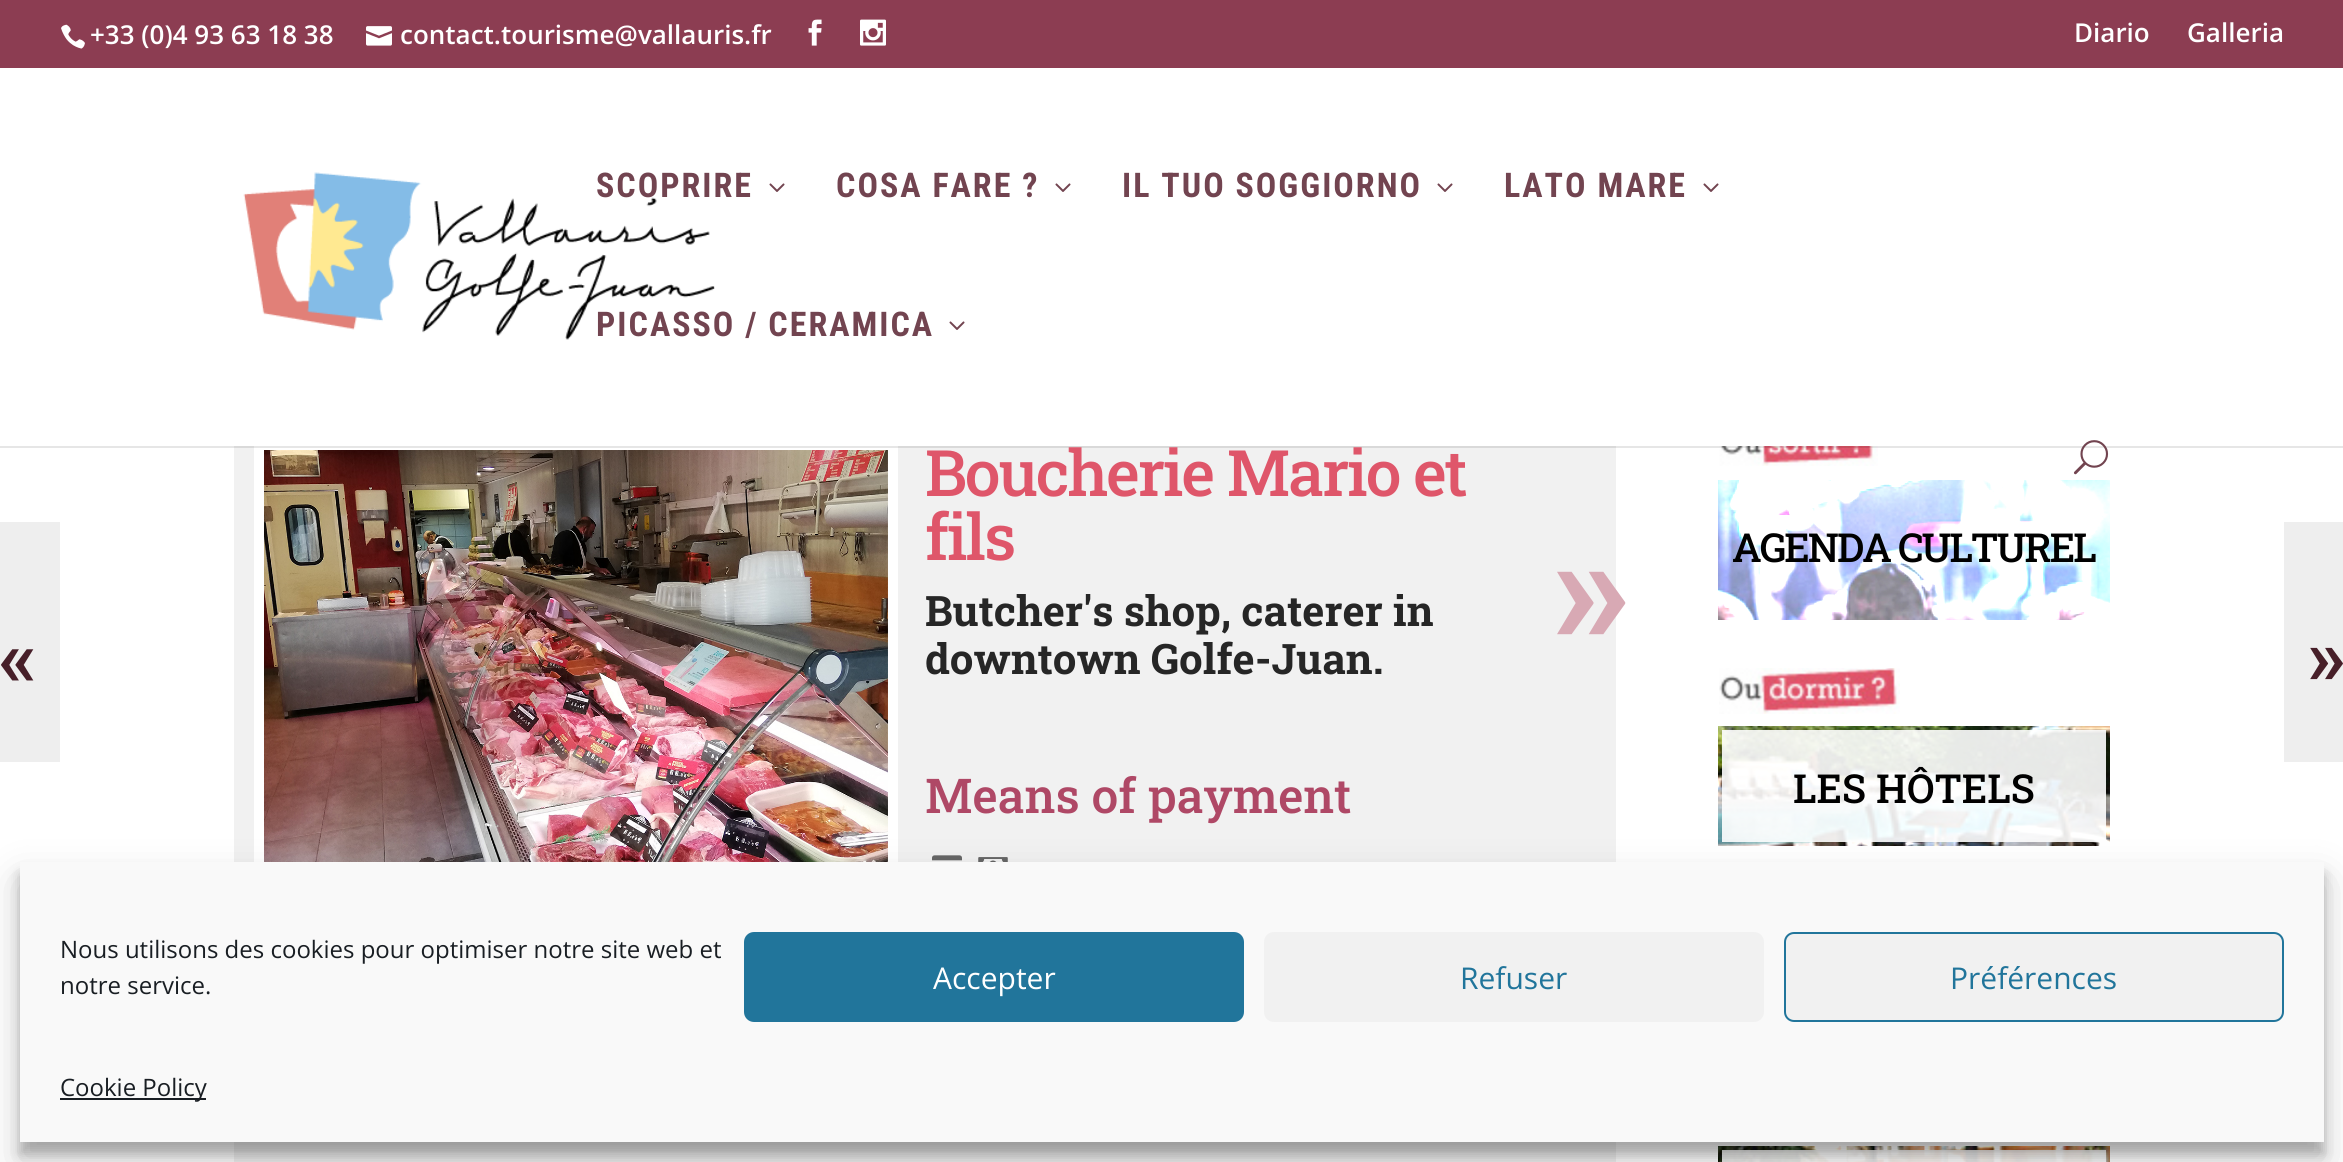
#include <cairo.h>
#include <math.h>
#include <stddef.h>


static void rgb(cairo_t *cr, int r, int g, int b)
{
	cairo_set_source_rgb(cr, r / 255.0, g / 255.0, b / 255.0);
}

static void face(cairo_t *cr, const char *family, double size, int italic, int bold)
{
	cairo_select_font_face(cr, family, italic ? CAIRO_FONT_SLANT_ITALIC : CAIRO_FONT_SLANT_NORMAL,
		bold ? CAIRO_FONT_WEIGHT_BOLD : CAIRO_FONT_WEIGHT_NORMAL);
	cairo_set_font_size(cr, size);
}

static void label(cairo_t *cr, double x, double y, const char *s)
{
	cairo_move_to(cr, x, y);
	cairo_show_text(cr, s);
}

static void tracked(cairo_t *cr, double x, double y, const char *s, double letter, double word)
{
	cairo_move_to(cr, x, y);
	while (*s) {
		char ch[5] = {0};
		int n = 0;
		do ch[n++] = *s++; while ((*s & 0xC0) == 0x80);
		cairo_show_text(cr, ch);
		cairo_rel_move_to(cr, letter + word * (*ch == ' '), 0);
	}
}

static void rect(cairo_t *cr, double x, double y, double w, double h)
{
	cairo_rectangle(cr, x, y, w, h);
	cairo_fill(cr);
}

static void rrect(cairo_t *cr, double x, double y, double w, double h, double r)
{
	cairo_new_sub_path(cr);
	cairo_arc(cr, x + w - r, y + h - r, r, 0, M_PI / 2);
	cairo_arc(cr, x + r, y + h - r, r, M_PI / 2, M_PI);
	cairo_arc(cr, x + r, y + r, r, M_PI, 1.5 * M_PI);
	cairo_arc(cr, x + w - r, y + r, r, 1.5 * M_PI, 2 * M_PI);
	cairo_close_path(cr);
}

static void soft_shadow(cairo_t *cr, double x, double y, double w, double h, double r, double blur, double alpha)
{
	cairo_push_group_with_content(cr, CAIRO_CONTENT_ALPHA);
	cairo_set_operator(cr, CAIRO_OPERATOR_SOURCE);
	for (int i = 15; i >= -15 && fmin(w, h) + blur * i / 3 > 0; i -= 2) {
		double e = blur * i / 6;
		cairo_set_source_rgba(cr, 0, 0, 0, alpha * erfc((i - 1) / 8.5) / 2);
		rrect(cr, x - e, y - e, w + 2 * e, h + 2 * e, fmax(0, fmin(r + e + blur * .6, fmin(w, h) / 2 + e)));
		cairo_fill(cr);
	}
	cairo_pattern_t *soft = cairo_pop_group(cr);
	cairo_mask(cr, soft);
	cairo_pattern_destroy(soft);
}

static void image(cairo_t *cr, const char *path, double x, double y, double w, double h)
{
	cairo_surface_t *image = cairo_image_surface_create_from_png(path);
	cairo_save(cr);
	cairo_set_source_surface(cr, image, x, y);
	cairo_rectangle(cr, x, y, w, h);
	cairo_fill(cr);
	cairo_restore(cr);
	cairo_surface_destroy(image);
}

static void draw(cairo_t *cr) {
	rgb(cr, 255, 255, 255);
	cairo_paint(cr);
	rgb(cr, 140, 61, 82);
	rect(cr, 0, 0, 2343, 68);
	image(cr, "image0.png", 61, 24, 24, 25);
	face(cr, "Open Sans SemiBold", 26, 0, 0);
	rgb(cr, 255, 255, 255);
	label(cr, 90, 44, "+33 (0)4 93 63 18 38");
	image(cr, "image1.png", 366, 26, 26, 20);
	label(cr, 400, 44, "contact.tourisme@vallauris.fr");
	image(cr, "image2.png", 808, 19, 14, 27);
	image(cr, "image3.png", 860, 19, 26, 27);
	label(cr, 2074, 42, "Diario");
	label(cr, 2187, 42, "Galleria");
	rgb(cr, 241, 241, 241);
	rect(cr, 234, 446, 1382, 716);
	cairo_rectangle(cr, 259, 445, 634, 478);
	rgb(cr, 255, 255, 255);
	cairo_set_line_width(cr, 10);
	cairo_stroke(cr);
	image(cr, "image10.png", 1719, 446, 159, 20);
	cairo_set_source_rgba(cr, 0, 0, 0, 0.1);
	rect(cr, 0, 446, 2343, 2);
	image(cr, "image4.png", 243, 172, 472, 168);
	face(cr, "Roboto Condensed", 34, 0, 1);
	rgb(cr, 114, 68, 80);
	tracked(cr, 596, 197, "SCOPRIRE", 2, 0);
	image(cr, "image5.png", 769, 183, 16, 9);
	tracked(cr, 836, 197, "COSA FARE ?", 2, 0);
	image(cr, "image5.png", 1055, 183, 16, 9);
	tracked(cr, 1122, 197, "IL TUO SOGGIORNO", 2, 0);
	image(cr, "image5.png", 1437, 183, 16, 9);
	tracked(cr, 1504, 197, "LATO MARE", 2, 0);
	image(cr, "image5.png", 1703, 183, 16, 9);
	tracked(cr, 596, 336, "PICASSO / CERAMICA", 2, 0);
	image(cr, "image5.png", 949, 321, 16, 9);
	image(cr, "image6.png", 2073, 440, 36, 35);
	rgb(cr, 238, 238, 238);
	rect(cr, 0, 522, 60, 240);
	face(cr, "Roboto Slab Medium", 80, 0, 0);
	rgb(cr, 71, 31, 41);
	label(cr, 0, 685, "«");
	image(cr, "image7.png", 264, 450, 624, 412);
	face(cr, "Roboto Slab Medium", 64, 0, 0);
	rgb(cr, 223, 86, 106);
	tracked(cr, 925, 496, "Boucherie Mario et", -2, 0);
	tracked(cr, 925, 560, "fils", -2, 0);
	face(cr, "Roboto Slab", 42, 0, 1);
	rgb(cr, 38, 38, 38);
	label(cr, 925, 626, "Butcher's shop, caterer in");
	face(cr, "Roboto Slab", 160, 0, 1);
	rgb(cr, 216, 169, 180);
	label(cr, 1552, 646, "»");
	face(cr, "Roboto Slab", 42, 0, 1);
	rgb(cr, 38, 38, 38);
	label(cr, 925, 674, "downtown Golfe-Juan.");
	face(cr, "Roboto Slab Medium", 48, 0, 0);
	rgb(cr, 175, 72, 102);
	label(cr, 925, 813, "Means of payment");
	image(cr, "image8.png", 932, 855, 30, 6);
	image(cr, "image9.png", 978, 857, 30, 5);
	image(cr, "image11.png", 1718, 480, 392, 140);
	face(cr, "Roboto Slab Medium", 40, 0, 0);
	rgb(cr, 0, 0, 0);
	tracked(cr, 1732, 562, "AGENDA CULTUREL", -2, 0);
	image(cr, "image12.png", 1719, 668, 181, 46);
	image(cr, "image13.png", 1718, 726, 392, 120);
	label(cr, 1793, 803, "LES HÔTELS");
	image(cr, "image14.png", 1718, 1146, 392, 16);
	cairo_set_source_rgba(cr, 1, 1, 1, 0.9);
	rect(cr, 1722, 1150, 384, 12);
	rgb(cr, 238, 238, 238);
	rect(cr, 2284, 522, 59, 240);
	face(cr, "Roboto Slab Medium", 80, 0, 0);
	rgb(cr, 71, 31, 41);
	label(cr, 2307, 685, "»");
	rgb(cr, 0, 0, 0);
	soft_shadow(cr, 20, 874, 2304, 280, 0, 6, 0.23);
	soft_shadow(cr, 20, 882, 2304, 280, 0, 20, 0.19);
	rgb(cr, 249, 249, 249);
	rect(cr, 20, 862, 2304, 280);
	face(cr, "Open Sans", 24, 0, 0);
	rgb(cr, 25, 30, 35);
	label(cr, 60, 958, "Nous utilisons des cookies pour optimiser notre site web et");
	label(cr, 60, 994, "notre service.");
	rgb(cr, 33, 117, 155);
	rrect(cr, 745, 933, 498, 88, 9);
	cairo_fill_preserve(cr);
	cairo_set_line_width(cr, 2);
	cairo_stroke(cr);
	face(cr, "Open Sans", 30, 0, 0);
	rgb(cr, 255, 255, 255);
	label(cr, 933, 989, "Accepter");
	rgb(cr, 241, 241, 241);
	rrect(cr, 1264, 932, 500, 90, 10);
	cairo_fill(cr);
	rgb(cr, 33, 117, 155);
	label(cr, 1460, 989, "Refuser");
	rgb(cr, 241, 241, 241);
	rrect(cr, 1785, 933, 498, 88, 9);
	cairo_fill_preserve(cr);
	rgb(cr, 33, 117, 155);
	cairo_stroke(cr);
	label(cr, 1950, 989, "Préférences");
	rgb(cr, 25, 30, 35);
	rect(cr, 60, 1098, 146, 2);
	face(cr, "Open Sans", 24, 0, 0);
	label(cr, 60, 1096, "Cookie Policy");
}

int main(void) {
	cairo_surface_t *surface = cairo_image_surface_create(CAIRO_FORMAT_RGB24, 2343, 1162);
	cairo_t *cr = cairo_create(surface);
	cairo_font_options_t *options = cairo_font_options_create();
	cairo_font_options_set_hint_metrics(options, CAIRO_HINT_METRICS_OFF);
	cairo_font_options_set_hint_style(options, CAIRO_HINT_STYLE_NONE);
	cairo_set_font_options(cr, options);
	cairo_set_miter_limit(cr, 4);
	draw(cr);
	cairo_surface_write_to_png(surface, "render.png");
	cairo_font_options_destroy(options);
	cairo_destroy(cr);
	cairo_surface_destroy(surface);
	return 0;
}
